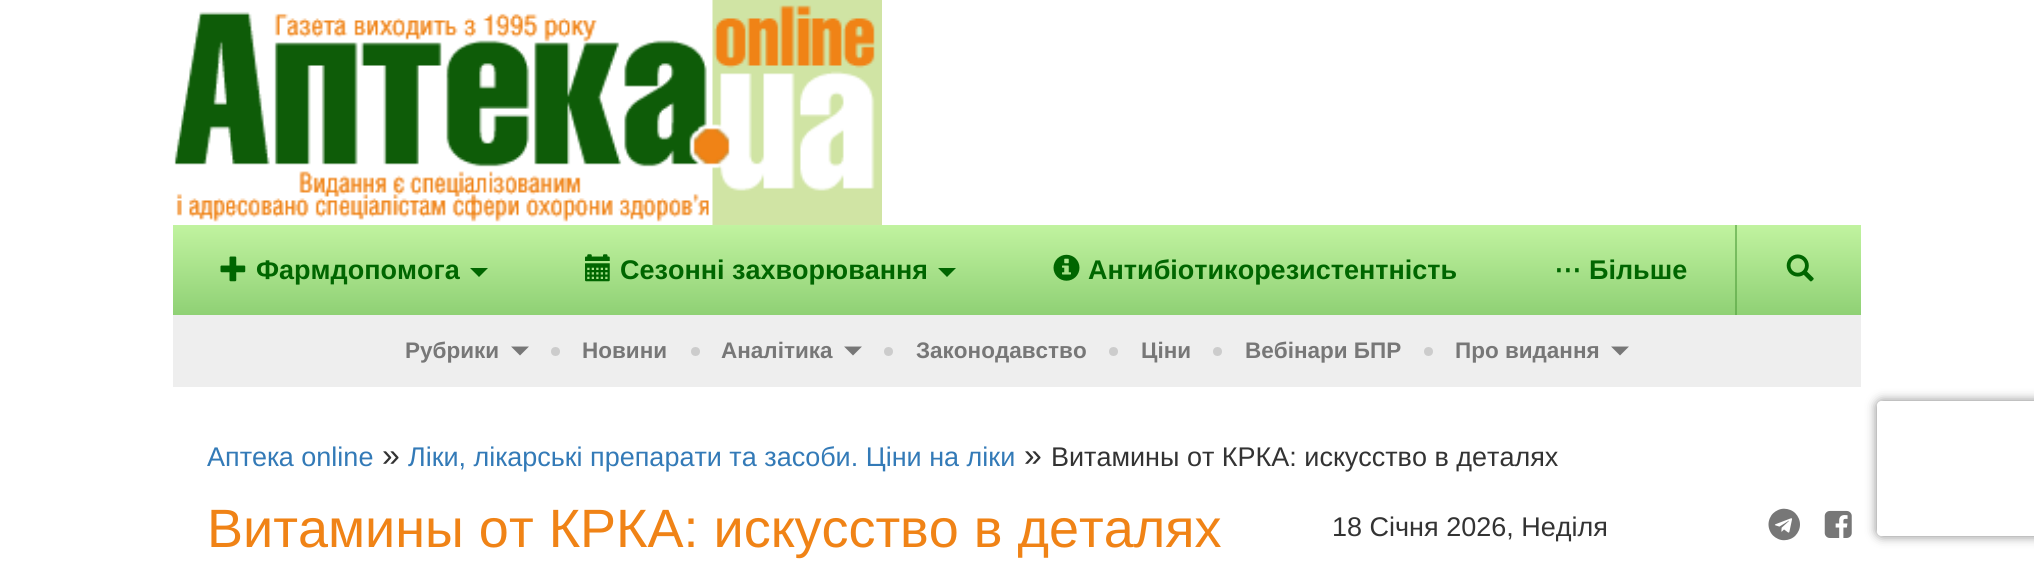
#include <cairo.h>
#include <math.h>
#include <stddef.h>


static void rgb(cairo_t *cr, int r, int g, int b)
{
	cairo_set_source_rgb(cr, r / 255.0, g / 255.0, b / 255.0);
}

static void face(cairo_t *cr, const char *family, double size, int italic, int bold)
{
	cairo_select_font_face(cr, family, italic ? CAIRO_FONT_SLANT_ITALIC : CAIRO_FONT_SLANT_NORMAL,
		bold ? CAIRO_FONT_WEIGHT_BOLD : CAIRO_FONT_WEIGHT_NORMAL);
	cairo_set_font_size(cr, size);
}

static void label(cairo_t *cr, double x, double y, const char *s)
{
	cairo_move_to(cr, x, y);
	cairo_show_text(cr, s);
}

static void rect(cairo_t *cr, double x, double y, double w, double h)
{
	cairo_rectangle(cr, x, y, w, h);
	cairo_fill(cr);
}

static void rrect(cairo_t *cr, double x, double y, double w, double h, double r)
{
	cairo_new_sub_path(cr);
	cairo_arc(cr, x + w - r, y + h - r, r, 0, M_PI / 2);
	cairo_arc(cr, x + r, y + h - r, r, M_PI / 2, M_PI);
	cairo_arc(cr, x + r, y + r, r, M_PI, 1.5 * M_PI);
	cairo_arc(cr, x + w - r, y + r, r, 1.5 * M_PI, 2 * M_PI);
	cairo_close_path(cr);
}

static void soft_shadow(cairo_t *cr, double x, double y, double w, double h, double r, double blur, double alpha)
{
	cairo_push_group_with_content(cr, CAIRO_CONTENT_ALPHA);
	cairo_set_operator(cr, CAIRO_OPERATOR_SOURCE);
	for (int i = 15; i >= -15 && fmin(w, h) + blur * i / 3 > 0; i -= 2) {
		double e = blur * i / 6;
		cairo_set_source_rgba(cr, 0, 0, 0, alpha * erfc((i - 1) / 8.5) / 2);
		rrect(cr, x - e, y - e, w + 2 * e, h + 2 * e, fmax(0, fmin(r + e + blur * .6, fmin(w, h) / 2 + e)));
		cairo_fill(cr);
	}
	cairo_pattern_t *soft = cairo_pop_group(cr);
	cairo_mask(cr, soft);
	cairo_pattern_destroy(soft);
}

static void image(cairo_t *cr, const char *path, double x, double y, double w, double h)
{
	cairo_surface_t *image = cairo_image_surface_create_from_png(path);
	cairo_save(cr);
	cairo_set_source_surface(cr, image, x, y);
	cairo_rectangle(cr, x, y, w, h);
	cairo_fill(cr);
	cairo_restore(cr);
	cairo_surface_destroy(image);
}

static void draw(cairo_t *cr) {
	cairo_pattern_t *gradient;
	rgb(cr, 255, 255, 255);
	cairo_paint(cr);
	image(cr, "image0.png", 174, 0, 708, 225);
	gradient = cairo_pattern_create_linear(1017, 225, 1017, 387);
	cairo_pattern_add_color_stop_rgba(gradient, 0, 0.757, 0.953, 0.627, 1);
	cairo_pattern_add_color_stop_rgba(gradient, 1, 0.404, 0.71, 0.322, 1);
	cairo_set_source(cr, gradient);
	cairo_pattern_destroy(gradient);
	rect(cr, 173, 225, 1688, 90);
	gradient = cairo_pattern_create_linear(1017, 225, 1017, 387);
	cairo_pattern_add_color_stop_rgba(gradient, 0, 0.49, 0.753, 0.392, 1);
	cairo_pattern_add_color_stop_rgba(gradient, 1, 0.369, 0.671, 0.282, 1);
	cairo_set_source(cr, gradient);
	cairo_pattern_destroy(gradient);
	rect(cr, 1735, 225, 2, 90);
	image(cr, "image1.png", 220, 256, 26, 26);
	face(cr, "Liberation Sans", 27, 0, 1);
	rgb(cr, 0, 102, 0);
	label(cr, 256, 279, "Фармдопомога");
	cairo_new_path(cr);
	cairo_move_to(cr, 470, 268);
	cairo_line_to(cr, 488, 268);
	cairo_line_to(cr, 479, 277);
	cairo_close_path(cr);
	cairo_fill(cr);
	image(cr, "image2.png", 585, 254, 25, 28);
	label(cr, 620, 279, "Сезонні захворювання");
	cairo_new_path(cr);
	cairo_move_to(cr, 938, 268);
	cairo_line_to(cr, 956, 268);
	cairo_line_to(cr, 947, 277);
	cairo_close_path(cr);
	cairo_fill(cr);
	image(cr, "image3.png", 1053, 254, 27, 27);
	label(cr, 1088, 279, "Антибіотикорезистентність");
	face(cr, "DejaVu Sans", 27, 0, 1);
	label(cr, 1554, 279, "⋯");
	face(cr, "Liberation Sans", 27, 0, 1);
	label(cr, 1589, 279, "Більше");
	image(cr, "image4.png", 1786, 254, 28, 28);
	rgb(cr, 238, 238, 238);
	rect(cr, 173, 315, 1688, 72);
	face(cr, "Liberation Sans", 22.5, 0, 1);
	rgb(cr, 119, 119, 119);
	label(cr, 405, 358, "Рубрики");
	cairo_new_path(cr);
	cairo_move_to(cr, 511, 346.5);
	cairo_line_to(cr, 529, 346.5);
	cairo_line_to(cr, 520, 355.5);
	cairo_close_path(cr);
	cairo_fill(cr);
	rgb(cr, 204, 204, 204);
	cairo_arc(cr, 555.5, 351.5, 4.5, 0, 2 * M_PI);
	cairo_fill(cr);
	rgb(cr, 119, 119, 119);
	label(cr, 582, 358, "Новини");
	rgb(cr, 204, 204, 204);
	cairo_new_path(cr);
	cairo_arc(cr, 695.5, 351.5, 4.5, 0, 2 * M_PI);
	cairo_fill(cr);
	rgb(cr, 119, 119, 119);
	label(cr, 721, 358, "Аналітика");
	cairo_new_path(cr);
	cairo_move_to(cr, 844, 346.5);
	cairo_line_to(cr, 862, 346.5);
	cairo_line_to(cr, 853, 355.5);
	cairo_close_path(cr);
	cairo_fill(cr);
	rgb(cr, 204, 204, 204);
	cairo_arc(cr, 888.5, 351.5, 4.5, 0, 2 * M_PI);
	cairo_fill(cr);
	rgb(cr, 119, 119, 119);
	label(cr, 916, 358, "Законодавство");
	rgb(cr, 204, 204, 204);
	cairo_new_path(cr);
	cairo_arc(cr, 1113.5, 351.5, 4.5, 0, 2 * M_PI);
	cairo_fill(cr);
	rgb(cr, 119, 119, 119);
	label(cr, 1141, 358, "Ціни");
	rgb(cr, 204, 204, 204);
	cairo_new_path(cr);
	cairo_arc(cr, 1217.5, 351.5, 4.5, 0, 2 * M_PI);
	cairo_fill(cr);
	rgb(cr, 119, 119, 119);
	label(cr, 1245, 358, "Вебінари БПР");
	rgb(cr, 204, 204, 204);
	cairo_new_path(cr);
	cairo_arc(cr, 1428.5, 351.5, 4.5, 0, 2 * M_PI);
	cairo_fill(cr);
	rgb(cr, 119, 119, 119);
	label(cr, 1455, 358, "Про видання");
	cairo_new_path(cr);
	cairo_move_to(cr, 1611, 346.5);
	cairo_line_to(cr, 1629, 346.5);
	cairo_line_to(cr, 1620, 355.5);
	cairo_close_path(cr);
	cairo_fill(cr);
	face(cr, "Liberation Sans", 27, 0, 0);
	rgb(cr, 51, 122, 183);
	label(cr, 207, 466, "Аптека online");
	face(cr, "Liberation Sans", 32, 0, 0);
	rgb(cr, 51, 51, 51);
	label(cr, 382, 466, "»");
	face(cr, "Liberation Sans", 27, 0, 0);
	rgb(cr, 51, 122, 183);
	label(cr, 408, 466, "Ліки, лікарські препарати та засоби. Ціни на ліки");
	face(cr, "Liberation Sans", 32, 0, 0);
	rgb(cr, 51, 51, 51);
	label(cr, 1024, 466, "»");
	face(cr, "Liberation Sans", 27, 0, 0);
	label(cr, 1051, 466, "Витамины от КРКА: искусство в деталях");
	face(cr, "Liberation Sans", 54, 0, 0);
	rgb(cr, 240, 131, 22);
	label(cr, 207, 547, "Витамины от КРКА: искусство в деталях");
	face(cr, "Liberation Sans", 27, 0, 0);
	rgb(cr, 51, 51, 51);
	label(cr, 1332, 536, "18 Січня 2026, Неділя");
	image(cr, "image5.png", 1768, 508, 32, 33);
	image(cr, "image6.png", 1824, 510, 28, 28);
	cairo_save(cr);
	cairo_set_fill_rule(cr, CAIRO_FILL_RULE_EVEN_ODD);
	cairo_new_path(cr);
	cairo_move_to(cr, 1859, 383);
	cairo_line_to(cr, 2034, 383);
	cairo_line_to(cr, 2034, 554);
	cairo_line_to(cr, 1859, 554);
	cairo_close_path(cr);
	cairo_move_to(cr, 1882, 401);
	cairo_line_to(cr, 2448, 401);
	cairo_curve_to(cr, 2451, 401, 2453, 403, 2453, 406);
	cairo_line_to(cr, 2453, 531);
	cairo_curve_to(cr, 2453, 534, 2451, 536, 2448, 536);
	cairo_line_to(cr, 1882, 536);
	cairo_curve_to(cr, 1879, 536, 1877, 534, 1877, 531);
	cairo_line_to(cr, 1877, 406);
	cairo_curve_to(cr, 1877, 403, 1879, 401, 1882, 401);
	cairo_close_path(cr);
	cairo_clip(cr);
	rgb(cr, 128, 128, 128);
	soft_shadow(cr, 1877, 401, 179, 135, 5, 5.5, 1);
	cairo_restore(cr);
}

int main(void) {
	cairo_surface_t *surface = cairo_image_surface_create(CAIRO_FORMAT_RGB24, 2034, 567);
	cairo_t *cr = cairo_create(surface);
	cairo_font_options_t *options = cairo_font_options_create();
	cairo_font_options_set_hint_metrics(options, CAIRO_HINT_METRICS_OFF);
	cairo_font_options_set_hint_style(options, CAIRO_HINT_STYLE_NONE);
	cairo_set_font_options(cr, options);
	cairo_set_miter_limit(cr, 4);
	draw(cr);
	cairo_surface_write_to_png(surface, "render.png");
	cairo_font_options_destroy(options);
	cairo_destroy(cr);
	cairo_surface_destroy(surface);
	return 0;
}
